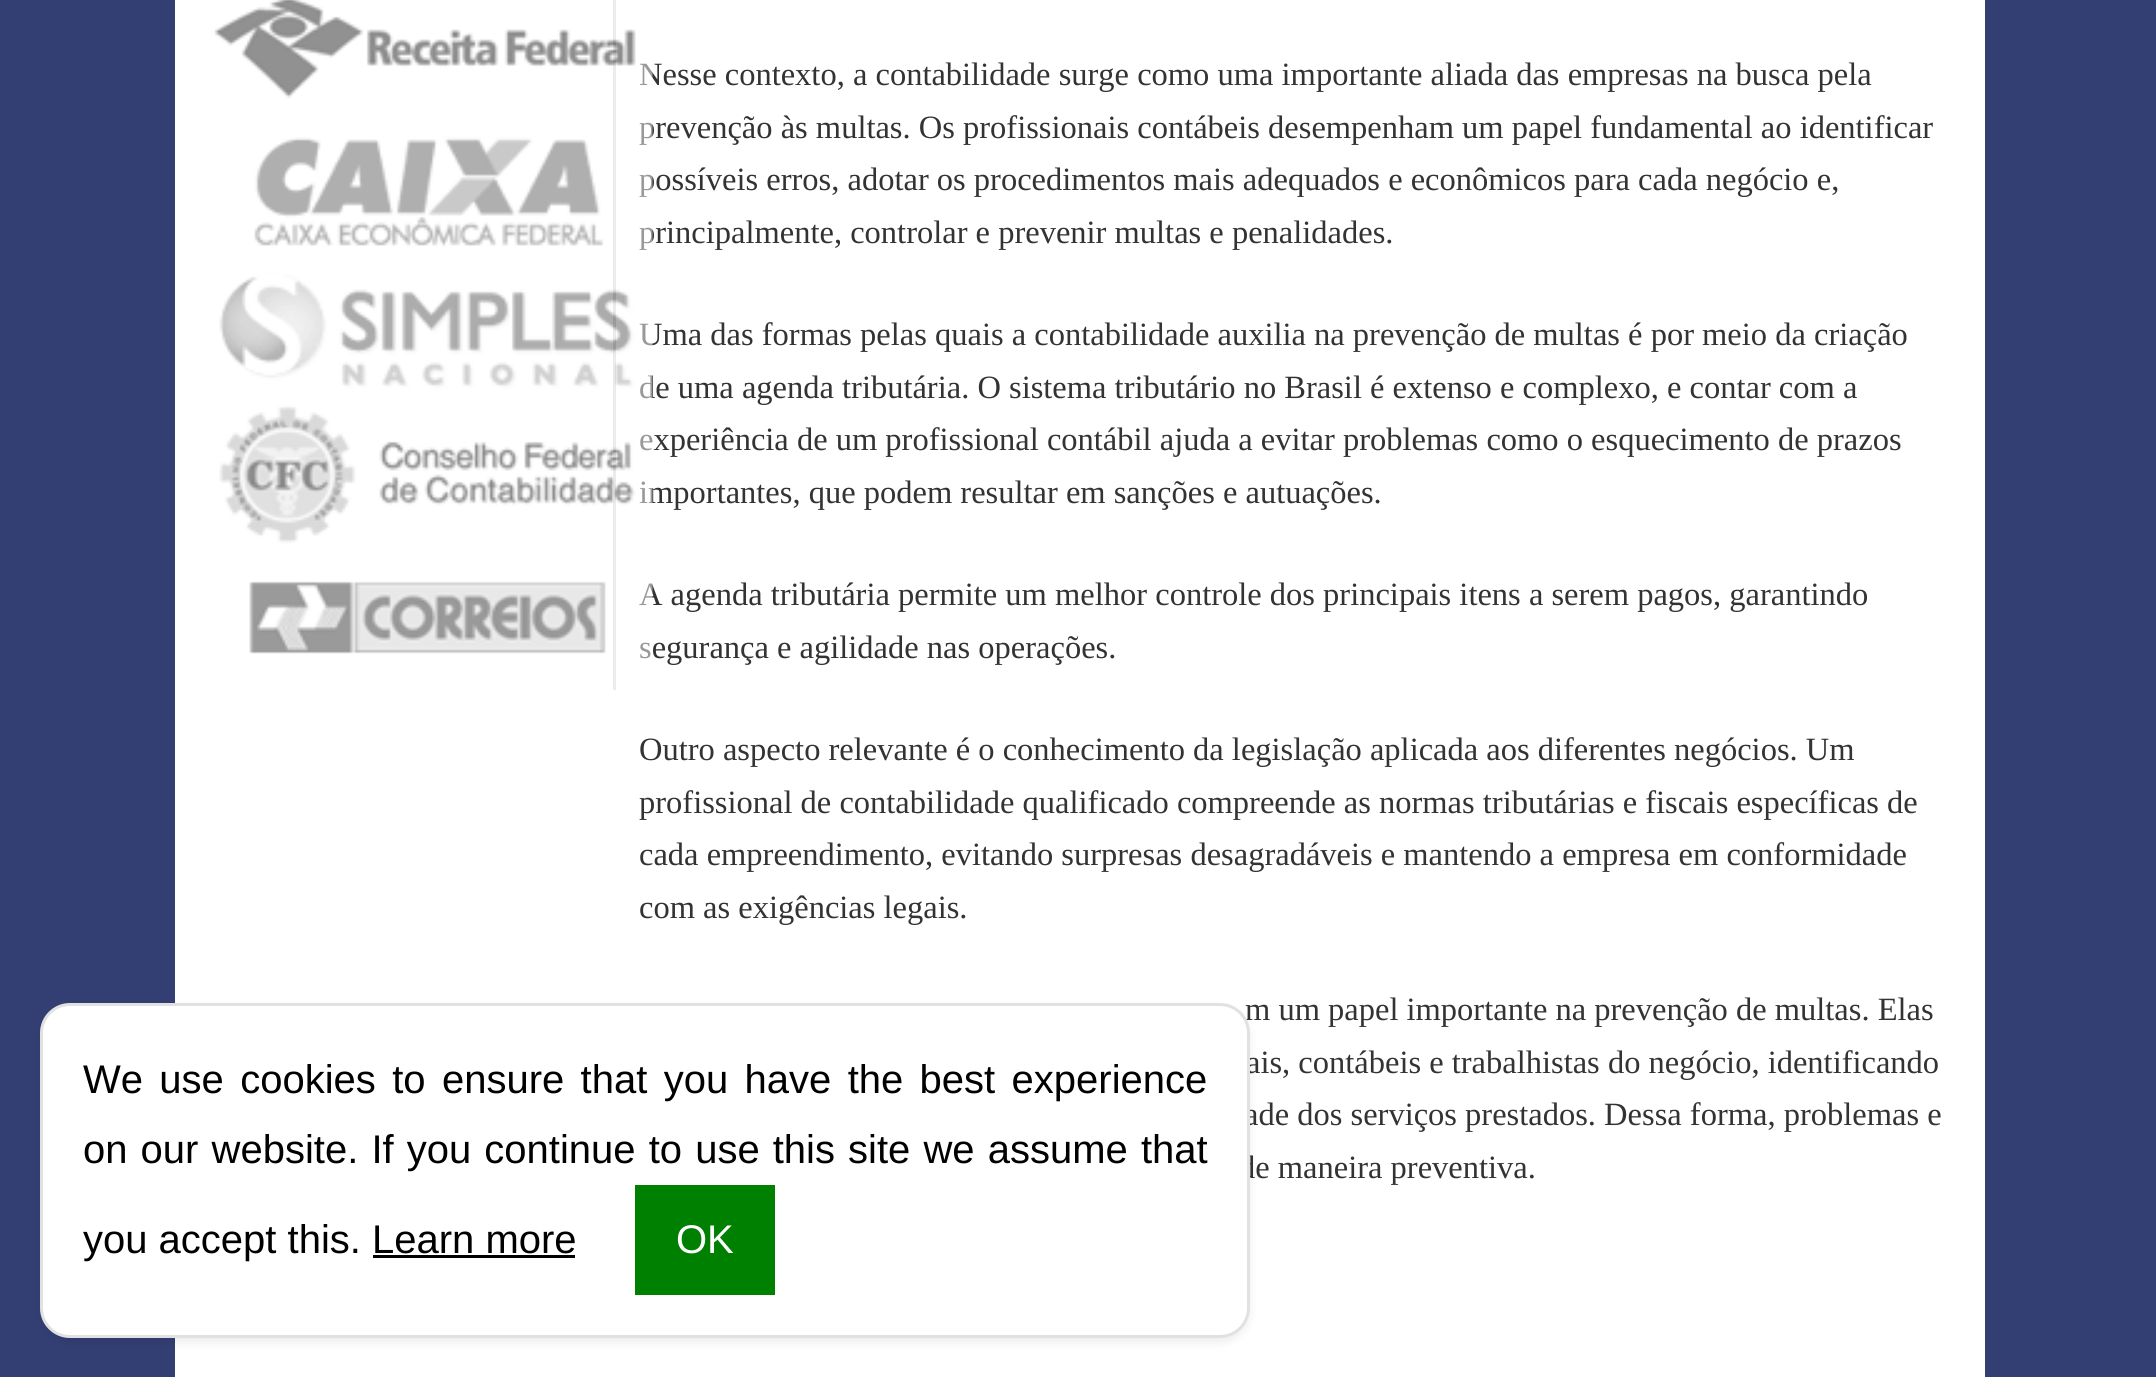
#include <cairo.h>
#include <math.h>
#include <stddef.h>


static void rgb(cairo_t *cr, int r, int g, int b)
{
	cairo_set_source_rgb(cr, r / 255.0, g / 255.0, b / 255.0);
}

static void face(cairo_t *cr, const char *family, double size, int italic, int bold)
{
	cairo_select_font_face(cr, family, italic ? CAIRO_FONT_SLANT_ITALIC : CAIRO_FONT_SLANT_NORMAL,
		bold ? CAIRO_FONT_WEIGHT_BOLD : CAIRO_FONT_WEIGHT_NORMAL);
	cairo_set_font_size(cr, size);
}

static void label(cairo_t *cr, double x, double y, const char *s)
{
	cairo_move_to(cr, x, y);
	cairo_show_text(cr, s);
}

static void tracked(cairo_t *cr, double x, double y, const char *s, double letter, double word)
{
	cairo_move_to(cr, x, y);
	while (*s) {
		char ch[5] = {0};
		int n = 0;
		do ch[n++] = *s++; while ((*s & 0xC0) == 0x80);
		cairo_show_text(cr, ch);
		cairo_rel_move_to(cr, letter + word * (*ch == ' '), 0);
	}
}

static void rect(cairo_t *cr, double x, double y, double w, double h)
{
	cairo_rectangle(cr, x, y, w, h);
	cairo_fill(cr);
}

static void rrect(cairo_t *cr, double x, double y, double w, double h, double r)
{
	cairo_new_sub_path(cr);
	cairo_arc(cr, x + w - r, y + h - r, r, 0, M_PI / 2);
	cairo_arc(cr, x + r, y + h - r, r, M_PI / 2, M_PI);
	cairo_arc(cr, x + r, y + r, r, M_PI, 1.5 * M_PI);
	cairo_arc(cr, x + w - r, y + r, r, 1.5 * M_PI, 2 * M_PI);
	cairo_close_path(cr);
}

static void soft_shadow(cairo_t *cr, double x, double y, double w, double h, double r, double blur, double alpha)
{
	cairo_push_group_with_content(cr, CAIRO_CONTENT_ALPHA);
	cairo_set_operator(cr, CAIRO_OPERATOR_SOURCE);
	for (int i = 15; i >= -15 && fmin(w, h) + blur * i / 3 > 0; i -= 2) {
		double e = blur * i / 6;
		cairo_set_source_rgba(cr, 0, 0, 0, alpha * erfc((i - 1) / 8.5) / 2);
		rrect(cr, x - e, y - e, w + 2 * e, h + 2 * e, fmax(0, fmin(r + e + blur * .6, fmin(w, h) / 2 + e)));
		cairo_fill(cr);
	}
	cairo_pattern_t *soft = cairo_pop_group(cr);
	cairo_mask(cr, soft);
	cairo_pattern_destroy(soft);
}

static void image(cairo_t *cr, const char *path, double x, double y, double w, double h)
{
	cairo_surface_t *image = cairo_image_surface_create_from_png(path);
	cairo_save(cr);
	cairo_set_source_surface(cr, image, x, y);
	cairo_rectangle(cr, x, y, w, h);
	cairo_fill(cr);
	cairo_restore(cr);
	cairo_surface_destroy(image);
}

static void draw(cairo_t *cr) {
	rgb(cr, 51, 62, 115);
	cairo_paint(cr);
	rgb(cr, 255, 255, 255);
	rect(cr, 175, 0, 1810, 1377);
	rgb(cr, 217, 217, 217);
	rect(cr, 613, 0, 3, 690);
	face(cr, "Liberation Serif", 32.5, 0, 0);
	rgb(cr, 51, 51, 51);
	label(cr, 639, 85, "Nesse contexto, a contabilidade surge como uma importante aliada das empresas na busca pela");
	label(cr, 639, 138, "prevenção às multas. Os profissionais contábeis desempenham um papel fundamental ao identificar");
	image(cr, "image0.png", 214, 0, 439, 120);
	label(cr, 639, 190, "possíveis erros, adotar os procedimentos mais adequados e econômicos para cada negócio e,");
	label(cr, 639, 243, "principalmente, controlar e prevenir multas e penalidades.");
	image(cr, "image1.png", 254, 120, 399, 143);
	label(cr, 639, 345, "Uma das formas pelas quais a contabilidade auxilia na prevenção de multas é por meio da criação");
	label(cr, 639, 398, "de uma agenda tributária. O sistema tributário no Brasil é extenso e complexo, e contar com a");
	image(cr, "image2.png", 219, 262, 434, 143);
	label(cr, 639, 450, "experiência de um profissional contábil ajuda a evitar problemas como o esquecimento de prazos");
	label(cr, 639, 503, "importantes, que podem resultar em sanções e autuações.");
	image(cr, "image3.png", 219, 405, 434, 143);
	label(cr, 639, 605, "A agenda tributária permite um melhor controle dos principais itens a serem pagos, garantindo");
	label(cr, 639, 658, "segurança e agilidade nas operações.");
	image(cr, "image4.png", 249, 547, 404, 143);
	label(cr, 639, 760, "Outro aspecto relevante é o conhecimento da legislação aplicada aos diferentes negócios. Um");
	label(cr, 639, 813, "profissional de contabilidade qualificado compreende as normas tributárias e fiscais específicas de");
	label(cr, 639, 865, "cada empreendimento, evitando surpresas desagradáveis e mantendo a empresa em conformidade");
	label(cr, 639, 918, "com as exigências legais.");
	label(cr, 1245, 1020, "m um papel importante na prevenção de multas. Elas");
	label(cr, 1246, 1073, "ais, contábeis e trabalhistas do negócio, identificando");
	label(cr, 1244, 1125, "ade dos serviços prestados. Dessa forma, problemas e");
	label(cr, 1239, 1178, "de maneira preventiva.");
	rgb(cr, 0, 0, 0);
	soft_shadow(cr, 40, 1008, 1210, 335, 30, 5, 0.07);
	rgb(cr, 255, 255, 255);
	rrect(cr, 40, 1003, 1210, 335, 30);
	cairo_fill(cr);
	rrect(cr, 41.5, 1004.5, 1207, 332, 28.5);
	cairo_set_source_rgba(cr, 0, 0, 0, 0.12);
	cairo_set_line_width(cr, 3);
	cairo_stroke(cr);
	face(cr, "Liberation Sans", 40, 0, 0);
	rgb(cr, 0, 0, 0);
	tracked(cr, 83, 1093, "We use cookies to ensure that you have the best experience", 0, 5.25);
	tracked(cr, 83, 1163, "on our website. If you continue to use this site we assume that", 0, 2);
	label(cr, 83, 1253, "you accept this. Learn more");
	rgb(cr, 0, 128, 0);
	rect(cr, 635, 1185, 140, 110);
	rgb(cr, 255, 255, 255);
	label(cr, 676, 1253, "OK");
	rgb(cr, 0, 0, 0);
	rect(cr, 373, 1255, 202, 3);
}

int main(void) {
	cairo_surface_t *surface = cairo_image_surface_create(CAIRO_FORMAT_RGB24, 2156, 1377);
	cairo_t *cr = cairo_create(surface);
	cairo_font_options_t *options = cairo_font_options_create();
	cairo_font_options_set_hint_metrics(options, CAIRO_HINT_METRICS_OFF);
	cairo_font_options_set_hint_style(options, CAIRO_HINT_STYLE_NONE);
	cairo_set_font_options(cr, options);
	cairo_set_miter_limit(cr, 4);
	draw(cr);
	cairo_surface_write_to_png(surface, "render.png");
	cairo_font_options_destroy(options);
	cairo_destroy(cr);
	cairo_surface_destroy(surface);
	return 0;
}
